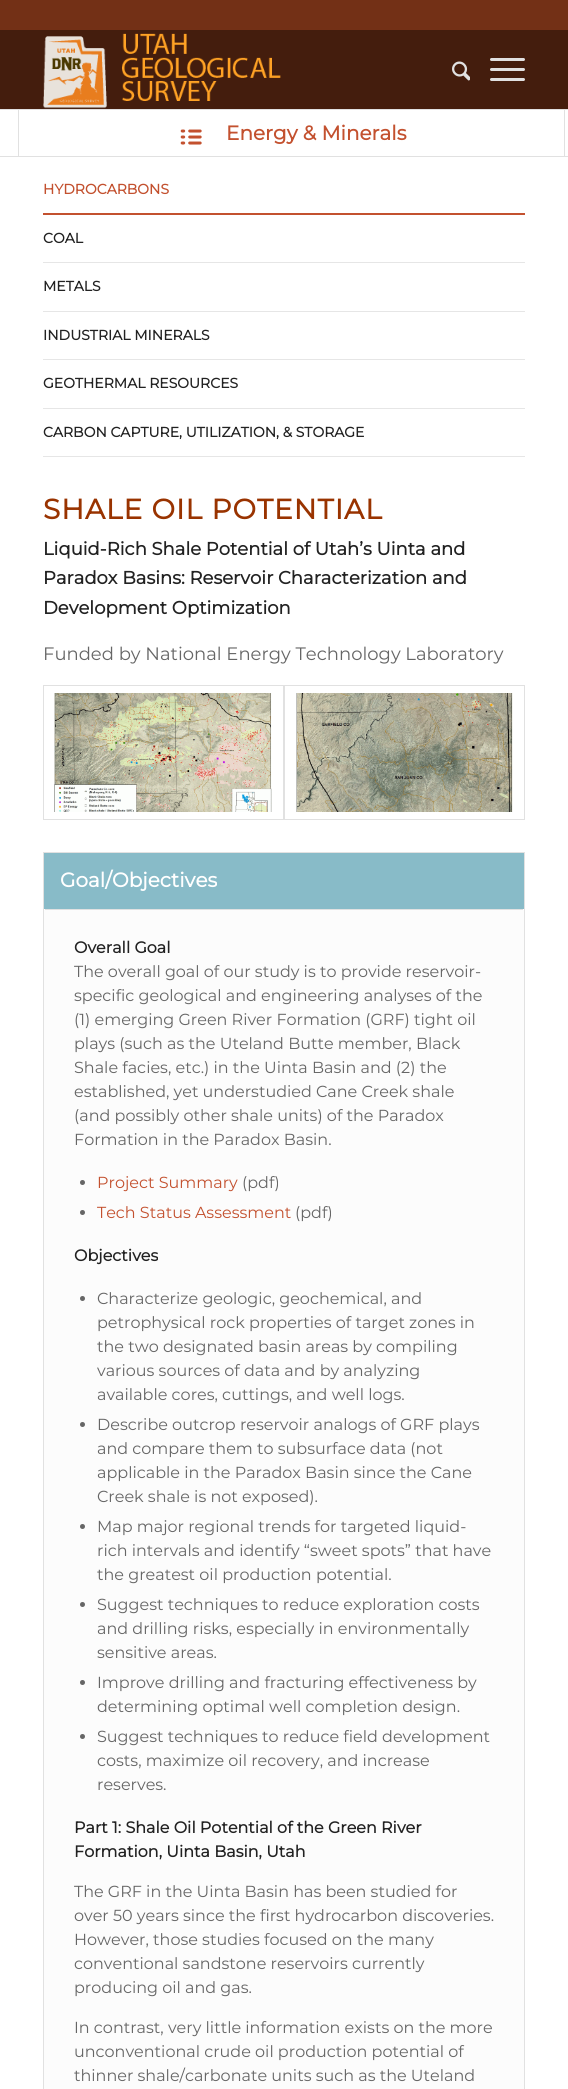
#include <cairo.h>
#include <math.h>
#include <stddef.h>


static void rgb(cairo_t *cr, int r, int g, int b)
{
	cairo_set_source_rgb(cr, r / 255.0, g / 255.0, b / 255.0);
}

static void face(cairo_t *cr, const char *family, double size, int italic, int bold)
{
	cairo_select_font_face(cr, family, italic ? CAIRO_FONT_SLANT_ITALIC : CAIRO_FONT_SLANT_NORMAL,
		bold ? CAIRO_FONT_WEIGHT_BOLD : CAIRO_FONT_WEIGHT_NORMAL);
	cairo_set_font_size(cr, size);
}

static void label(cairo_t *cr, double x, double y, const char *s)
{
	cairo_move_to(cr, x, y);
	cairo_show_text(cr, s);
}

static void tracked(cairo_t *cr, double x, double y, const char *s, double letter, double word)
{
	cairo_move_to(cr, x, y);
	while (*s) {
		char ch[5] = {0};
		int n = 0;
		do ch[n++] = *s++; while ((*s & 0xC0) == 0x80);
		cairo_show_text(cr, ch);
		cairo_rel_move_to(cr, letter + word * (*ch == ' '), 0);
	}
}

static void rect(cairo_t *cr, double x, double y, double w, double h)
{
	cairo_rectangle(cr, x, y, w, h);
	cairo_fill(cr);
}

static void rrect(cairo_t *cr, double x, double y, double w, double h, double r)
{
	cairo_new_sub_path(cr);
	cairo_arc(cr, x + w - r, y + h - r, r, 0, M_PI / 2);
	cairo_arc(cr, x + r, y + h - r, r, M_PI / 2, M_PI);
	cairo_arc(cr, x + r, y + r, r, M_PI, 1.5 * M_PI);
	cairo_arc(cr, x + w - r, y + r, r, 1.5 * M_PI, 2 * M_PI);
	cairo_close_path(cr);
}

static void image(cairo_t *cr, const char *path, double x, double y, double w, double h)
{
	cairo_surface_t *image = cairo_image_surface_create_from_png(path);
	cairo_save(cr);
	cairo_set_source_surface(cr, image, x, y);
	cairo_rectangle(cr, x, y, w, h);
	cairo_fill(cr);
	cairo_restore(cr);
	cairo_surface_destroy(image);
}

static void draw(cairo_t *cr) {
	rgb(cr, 255, 255, 255);
	cairo_paint(cr);
	rgb(cr, 115, 48, 22);
	rect(cr, 0, 0, 568, 30);
	rgb(cr, 68, 29, 13);
	rect(cr, 0, 30, 568, 79);
	image(cr, "image0.png", 43, 33, 238, 76);
	image(cr, "image1.png", 452, 61, 18, 20);
	rgb(cr, 225, 225, 225);
	rrect(cr, 490, 68, 35, 3, 1.5);
	cairo_fill(cr);
	rrect(cr, 490, 58, 35, 3, 1.5);
	cairo_fill(cr);
	rrect(cr, 490, 78, 35, 3, 1.5);
	cairo_fill(cr);
	rect(cr, 0, 109, 568, 1);
	rect(cr, 0, 156, 568, 1);
	rect(cr, 564, 110, 1, 46);
	rect(cr, 18, 110, 1, 46);
	image(cr, "image2.png", 180, 129, 22, 16);
	face(cr, "Montserrat", 20, 0, 1);
	rgb(cr, 195, 81, 47);
	label(cr, 226, 140, "Energy & Minerals");
	face(cr, "Montserrat", 14, 0, 1);
	label(cr, 43, 194, "HYDROCARBONS");
	rect(cr, 43, 213, 482, 2);
	rgb(cr, 34, 34, 34);
	label(cr, 43, 243, "COAL");
	rgb(cr, 230, 230, 230);
	rect(cr, 43, 262, 482, 1);
	rgb(cr, 34, 34, 34);
	label(cr, 43, 291, "METALS");
	rgb(cr, 230, 230, 230);
	rect(cr, 43, 311, 482, 1);
	rgb(cr, 34, 34, 34);
	label(cr, 43, 340, "INDUSTRIAL MINERALS");
	rgb(cr, 230, 230, 230);
	rect(cr, 43, 359, 482, 1);
	rgb(cr, 34, 34, 34);
	label(cr, 43, 388, "GEOTHERMAL RESOURCES");
	rgb(cr, 230, 230, 230);
	rect(cr, 43, 408, 482, 1);
	rgb(cr, 34, 34, 34);
	label(cr, 43, 437, "CARBON CAPTURE, UTILIZATION, & STORAGE");
	rgb(cr, 230, 230, 230);
	rect(cr, 43, 456, 482, 1);
	face(cr, "Montserrat", 28, 0, 1);
	rgb(cr, 153, 51, 0);
	tracked(cr, 43, 519, "SHALE OIL POTENTIAL", 1, 0);
	face(cr, "Montserrat", 18, 0, 1);
	rgb(cr, 34, 34, 34);
	label(cr, 43, 555, "Liquid-Rich Shale Potential of Utah’s Uinta and");
	label(cr, 43, 584, "Paradox Basins: Reservoir Characterization and");
	label(cr, 43, 614, "Development Optimization");
	face(cr, "Montserrat Thin", 18, 0, 0);
	rgb(cr, 102, 102, 102);
	label(cr, 43, 660, "Funded by National Energy Technology Laboratory");
	cairo_rectangle(cr, 43.5, 685.5, 240, 134);
	rgb(cr, 225, 225, 225);
	cairo_set_line_width(cr, 1);
	cairo_stroke(cr);
	image(cr, "image3.png", 54, 693, 218, 119);
	cairo_rectangle(cr, 284.5, 685.5, 240, 134);
	cairo_stroke(cr);
	image(cr, "image4.png", 296, 693, 217, 119);
	rect(cr, 524, 852, 1, 1237);
	rect(cr, 43, 852, 1, 1237);
	rgb(cr, 136, 187, 200);
	rect(cr, 44, 853, 480, 56);
	rgb(cr, 225, 225, 225);
	rect(cr, 44, 852, 480, 1);
	face(cr, "Montserrat", 20, 0, 1);
	rgb(cr, 255, 255, 255);
	label(cr, 60, 887, "Goal/Objectives");
	rgb(cr, 252, 252, 252);
	rrect(cr, 44, 909, 480, 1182, 2);
	cairo_fill(cr);
	rgb(cr, 225, 225, 225);
	rect(cr, 45, 909, 478, 1);
	face(cr, "Montserrat", 16, 0, 1);
	rgb(cr, 34, 34, 34);
	label(cr, 74, 953, "Overall Goal");
	face(cr, "Montserrat Thin", 16, 0, 0);
	rgb(cr, 102, 102, 102);
	label(cr, 74, 977, "The overall goal of our study is to provide reservoir-");
	label(cr, 74, 1001, "specific geological and engineering analyses of the");
	label(cr, 74, 1025, "(1) emerging Green River Formation (GRF) tight oil");
	label(cr, 74, 1049, "plays (such as the Uteland Butte member, Black");
	label(cr, 74, 1073, "Shale facies, etc.) in the Uinta Basin and (2) the");
	label(cr, 74, 1097, "established, yet understudied Cane Creek shale");
	label(cr, 74, 1121, "(and possibly other shale units) of the Paradox");
	label(cr, 74, 1145, "Formation in the Paradox Basin.");
	cairo_new_path(cr);
	cairo_arc(cr, 82.5, 1182.5, 2.5, 0, 2 * M_PI);
	cairo_fill(cr);
	rgb(cr, 195, 81, 47);
	label(cr, 97, 1188, "Project Summary");
	rgb(cr, 102, 102, 102);
	label(cr, 242, 1188, "(pdf)");
	cairo_new_path(cr);
	cairo_arc(cr, 82.5, 1212.5, 2.5, 0, 2 * M_PI);
	cairo_fill(cr);
	rgb(cr, 195, 81, 47);
	label(cr, 97, 1218, "Tech Status Assessment");
	rgb(cr, 102, 102, 102);
	label(cr, 295, 1218, "(pdf)");
	face(cr, "Montserrat", 16, 0, 1);
	rgb(cr, 34, 34, 34);
	label(cr, 74, 1261, "Objectives");
	rgb(cr, 102, 102, 102);
	cairo_new_path(cr);
	cairo_arc(cr, 82.5, 1298.5, 2.5, 0, 2 * M_PI);
	cairo_fill(cr);
	face(cr, "Montserrat Thin", 16, 0, 0);
	label(cr, 97, 1304, "Characterize geologic, geochemical, and");
	label(cr, 97, 1328, "petrophysical rock properties of target zones in");
	label(cr, 97, 1352, "the two designated basin areas by compiling");
	label(cr, 97, 1376, "various sources of data and by analyzing");
	label(cr, 97, 1400, "available cores, cuttings, and well logs.");
	cairo_new_path(cr);
	cairo_arc(cr, 82.5, 1424.5, 2.5, 0, 2 * M_PI);
	cairo_fill(cr);
	label(cr, 97, 1430, "Describe outcrop reservoir analogs of GRF plays");
	label(cr, 97, 1454, "and compare them to subsurface data (not");
	label(cr, 97, 1478, "applicable in the Paradox Basin since the Cane");
	label(cr, 97, 1502, "Creek shale is not exposed).");
	cairo_new_path(cr);
	cairo_arc(cr, 82.5, 1526.5, 2.5, 0, 2 * M_PI);
	cairo_fill(cr);
	label(cr, 97, 1532, "Map major regional trends for targeted liquid-");
	label(cr, 97, 1556, "rich intervals and identify “sweet spots” that have");
	label(cr, 97, 1580, "the greatest oil production potential.");
	cairo_new_path(cr);
	cairo_arc(cr, 82.5, 1604.5, 2.5, 0, 2 * M_PI);
	cairo_fill(cr);
	label(cr, 97, 1610, "Suggest techniques to reduce exploration costs");
	label(cr, 97, 1634, "and drilling risks, especially in environmentally");
	label(cr, 97, 1658, "sensitive areas.");
	cairo_new_path(cr);
	cairo_arc(cr, 82.5, 1682.5, 2.5, 0, 2 * M_PI);
	cairo_fill(cr);
	label(cr, 97, 1688, "Improve drilling and fracturing effectiveness by");
	label(cr, 97, 1712, "determining optimal well completion design.");
	cairo_new_path(cr);
	cairo_arc(cr, 82.5, 1736.5, 2.5, 0, 2 * M_PI);
	cairo_fill(cr);
	label(cr, 97, 1742, "Suggest techniques to reduce field development");
	label(cr, 97, 1766, "costs, maximize oil recovery, and increase");
	label(cr, 97, 1790, "reserves.");
	face(cr, "Montserrat", 16, 0, 1);
	rgb(cr, 34, 34, 34);
	label(cr, 74, 1833, "Part 1: Shale Oil Potential of the Green River");
	label(cr, 74, 1857, "Formation, Uinta Basin, Utah");
	face(cr, "Montserrat Thin", 16, 0, 0);
	rgb(cr, 102, 102, 102);
	label(cr, 74, 1897, "The GRF in the Uinta Basin has been studied for");
	label(cr, 74, 1921, "over 50 years since the first hydrocarbon discoveries.");
	label(cr, 74, 1945, "However, those studies focused on the many");
	label(cr, 74, 1969, "conventional sandstone reservoirs currently");
	label(cr, 74, 1993, "producing oil and gas.");
	label(cr, 74, 2033, "In contrast, very little information exists on the more");
	label(cr, 74, 2057, "unconventional crude oil production potential of");
	label(cr, 74, 2081, "thinner shale/carbonate units such as the Uteland");
}

int main(void) {
	cairo_surface_t *surface = cairo_image_surface_create(CAIRO_FORMAT_RGB24, 568, 2089);
	cairo_t *cr = cairo_create(surface);
	cairo_font_options_t *options = cairo_font_options_create();
	cairo_font_options_set_hint_metrics(options, CAIRO_HINT_METRICS_OFF);
	cairo_font_options_set_hint_style(options, CAIRO_HINT_STYLE_NONE);
	cairo_set_font_options(cr, options);
	cairo_set_miter_limit(cr, 4);
	draw(cr);
	cairo_surface_write_to_png(surface, "render.png");
	cairo_font_options_destroy(options);
	cairo_destroy(cr);
	cairo_surface_destroy(surface);
	return 0;
}
